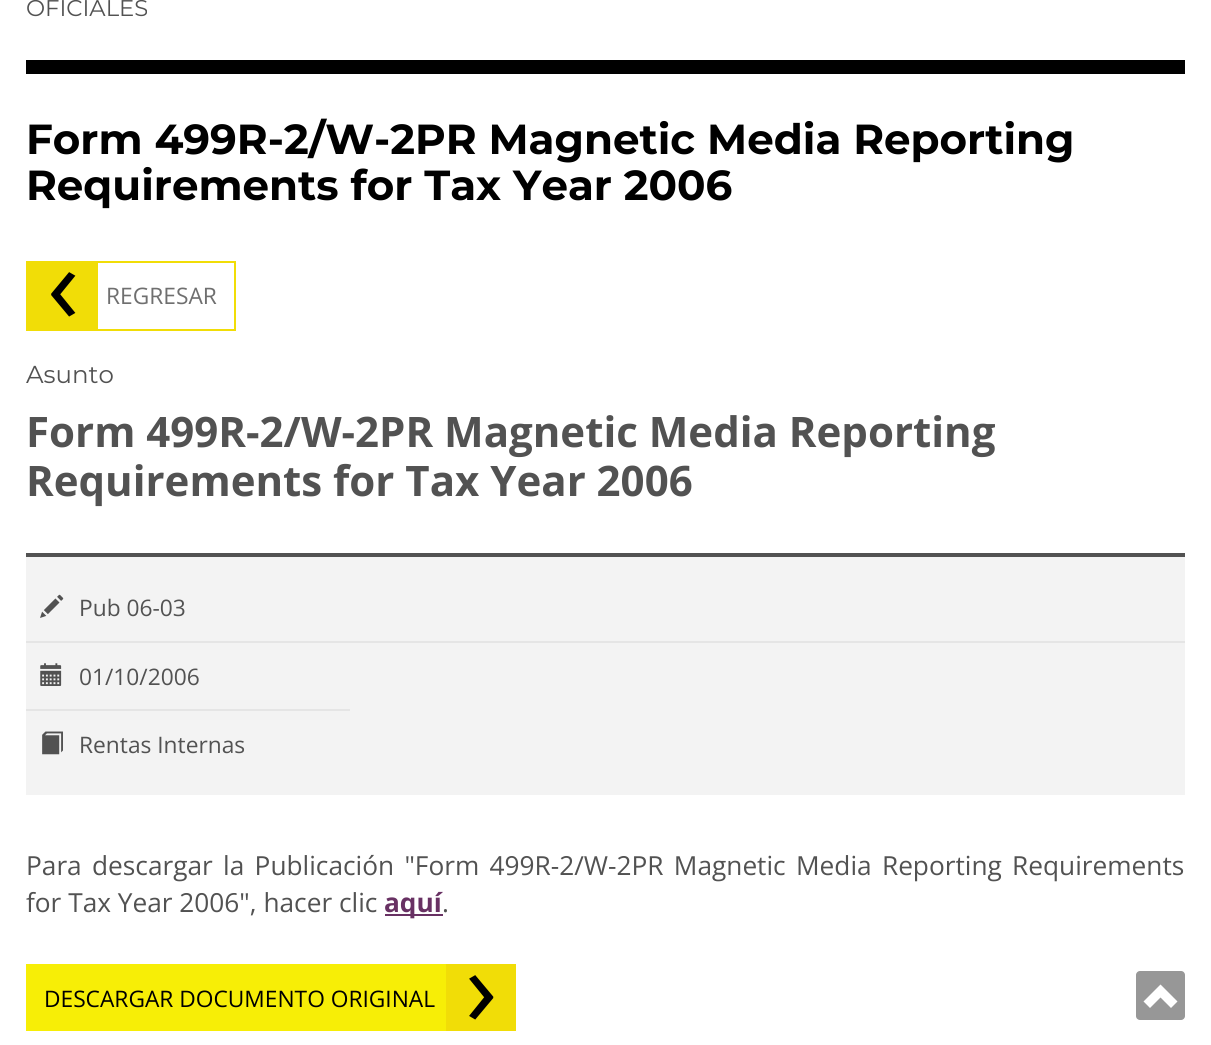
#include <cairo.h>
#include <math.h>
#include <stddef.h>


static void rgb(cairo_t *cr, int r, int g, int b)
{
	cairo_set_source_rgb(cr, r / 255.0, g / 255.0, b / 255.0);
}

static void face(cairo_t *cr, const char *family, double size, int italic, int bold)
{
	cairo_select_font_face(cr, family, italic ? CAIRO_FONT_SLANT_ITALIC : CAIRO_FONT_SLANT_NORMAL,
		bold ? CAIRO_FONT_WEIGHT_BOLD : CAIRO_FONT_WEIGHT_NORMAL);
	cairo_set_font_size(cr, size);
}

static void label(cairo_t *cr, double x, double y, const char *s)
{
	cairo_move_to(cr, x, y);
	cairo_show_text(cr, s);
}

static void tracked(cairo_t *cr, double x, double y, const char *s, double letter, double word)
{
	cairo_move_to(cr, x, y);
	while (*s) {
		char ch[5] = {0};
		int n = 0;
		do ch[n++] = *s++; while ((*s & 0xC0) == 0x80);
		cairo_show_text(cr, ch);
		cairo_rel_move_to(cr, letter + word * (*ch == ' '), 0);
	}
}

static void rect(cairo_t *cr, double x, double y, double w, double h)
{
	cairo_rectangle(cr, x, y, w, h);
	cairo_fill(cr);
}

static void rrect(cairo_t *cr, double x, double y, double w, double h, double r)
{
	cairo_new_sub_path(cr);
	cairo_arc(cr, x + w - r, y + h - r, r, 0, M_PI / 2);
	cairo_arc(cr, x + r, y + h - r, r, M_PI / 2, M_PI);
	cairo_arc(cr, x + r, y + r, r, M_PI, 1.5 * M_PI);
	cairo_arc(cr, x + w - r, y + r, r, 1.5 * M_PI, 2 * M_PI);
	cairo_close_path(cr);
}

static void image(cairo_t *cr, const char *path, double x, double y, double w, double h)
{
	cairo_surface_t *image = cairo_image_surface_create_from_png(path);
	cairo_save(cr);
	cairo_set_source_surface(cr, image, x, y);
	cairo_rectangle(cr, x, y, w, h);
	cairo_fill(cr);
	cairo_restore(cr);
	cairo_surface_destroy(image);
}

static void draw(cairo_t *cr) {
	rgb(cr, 255, 255, 255);
	cairo_paint(cr);
	rgb(cr, 0, 0, 0);
	rect(cr, 26, 60, 1159, 14);
	face(cr, "Montserrat", 22.75, 0, 0);
	rgb(cr, 82, 82, 82);
	label(cr, 26, 16, "OFICIALES");
	face(cr, "Montserrat", 42, 0, 1);
	rgb(cr, 0, 0, 0);
	label(cr, 26, 154, "Form 499R-2/W-2PR Magnetic Media Reporting");
	label(cr, 26, 200, "Requirements for Tax Year 2006");
	cairo_rectangle(cr, 27, 262, 208, 68);
	rgb(cr, 241, 221, 7);
	cairo_stroke(cr);
	rect(cr, 28, 263, 70, 66);
	face(cr, "Open Sans", 108, 0, 0);
	rgb(cr, 0, 0, 0);
	label(cr, 47, 323, "‹");
	face(cr, "Open Sans", 22.75, 0, 0);
	rgb(cr, 111, 111, 111);
	label(cr, 106, 304, "REGRESAR");
	face(cr, "Montserrat", 24.5, 0, 0);
	rgb(cr, 82, 82, 82);
	label(cr, 26, 383, "Asunto");
	face(cr, "Open Sans", 42, 0, 1);
	label(cr, 26, 447, "Form 499R-2/W-2PR Magnetic Media Reporting");
	label(cr, 26, 496, "Requirements for Tax Year 2006");
	rgb(cr, 243, 243, 243);
	rect(cr, 26, 557, 1159, 238);
	rgb(cr, 82, 82, 82);
	rect(cr, 26, 553, 1159, 4);
	rgb(cr, 229, 229, 229);
	rect(cr, 26, 641, 1159, 2);
	image(cr, "image0.png", 40, 594, 24, 24);
	face(cr, "Open Sans", 22.75, 0, 0);
	rgb(cr, 82, 82, 82);
	label(cr, 79, 616, "Pub 06-03");
	rgb(cr, 229, 229, 229);
	rect(cr, 26, 709, 324, 2);
	image(cr, "image1.png", 40, 663, 22, 23);
	rgb(cr, 82, 82, 82);
	label(cr, 79, 685, "01/10/2006");
	image(cr, "image2.png", 42, 731, 21, 24);
	label(cr, 79, 753, "Rentas Internas");
	face(cr, "Open Sans", 26.25, 0, 0);
	tracked(cr, 26, 875, "Para descargar la Publicación \"Form 499R-2/W-2PR Magnetic Media Reporting Requirements", 0, 3.5);
	label(cr, 26, 912, "for Tax Year 2006\", hacer clic");
	rgb(cr, 104, 49, 99);
	rect(cr, 385, 914, 58, 2);
	face(cr, "Open Sans", 26.25, 0, 1);
	label(cr, 384, 912, "aquí");
	face(cr, "Open Sans", 26.25, 0, 0);
	rgb(cr, 82, 82, 82);
	label(cr, 442, 912, ".");
	rgb(cr, 247, 238, 6);
	rect(cr, 26, 964, 420, 67);
	face(cr, "Open Sans", 22.75, 0, 0);
	rgb(cr, 0, 0, 0);
	label(cr, 44, 1007, "DESCARGAR DOCUMENTO ORIGINAL");
	rgb(cr, 241, 221, 7);
	rect(cr, 446, 964, 70, 67);
	face(cr, "Open Sans", 108, 0, 0);
	rgb(cr, 0, 0, 0);
	label(cr, 465, 1026, "›");
	rgb(cr, 151, 151, 151);
	rrect(cr, 1136, 971, 49, 49, 4);
	cairo_fill(cr);
	rgb(cr, 255, 255, 255);
	cairo_new_path(cr);
	cairo_move_to(cr, 1143.5, 1001.5);
	cairo_line_to(cr, 1150, 1008);
	cairo_line_to(cr, 1160.5, 997.5);
	cairo_line_to(cr, 1171, 1008);
	cairo_line_to(cr, 1177.5, 1001.5);
	cairo_line_to(cr, 1160.5, 984.5);
	cairo_close_path(cr);
	cairo_fill(cr);
}

int main(void) {
	cairo_surface_t *surface = cairo_image_surface_create(CAIRO_FORMAT_RGB24, 1211, 1045);
	cairo_t *cr = cairo_create(surface);
	cairo_font_options_t *options = cairo_font_options_create();
	cairo_font_options_set_hint_metrics(options, CAIRO_HINT_METRICS_OFF);
	cairo_font_options_set_hint_style(options, CAIRO_HINT_STYLE_NONE);
	cairo_set_font_options(cr, options);
	cairo_set_miter_limit(cr, 4);
	draw(cr);
	cairo_surface_write_to_png(surface, "render.png");
	cairo_font_options_destroy(options);
	cairo_destroy(cr);
	cairo_surface_destroy(surface);
	return 0;
}
